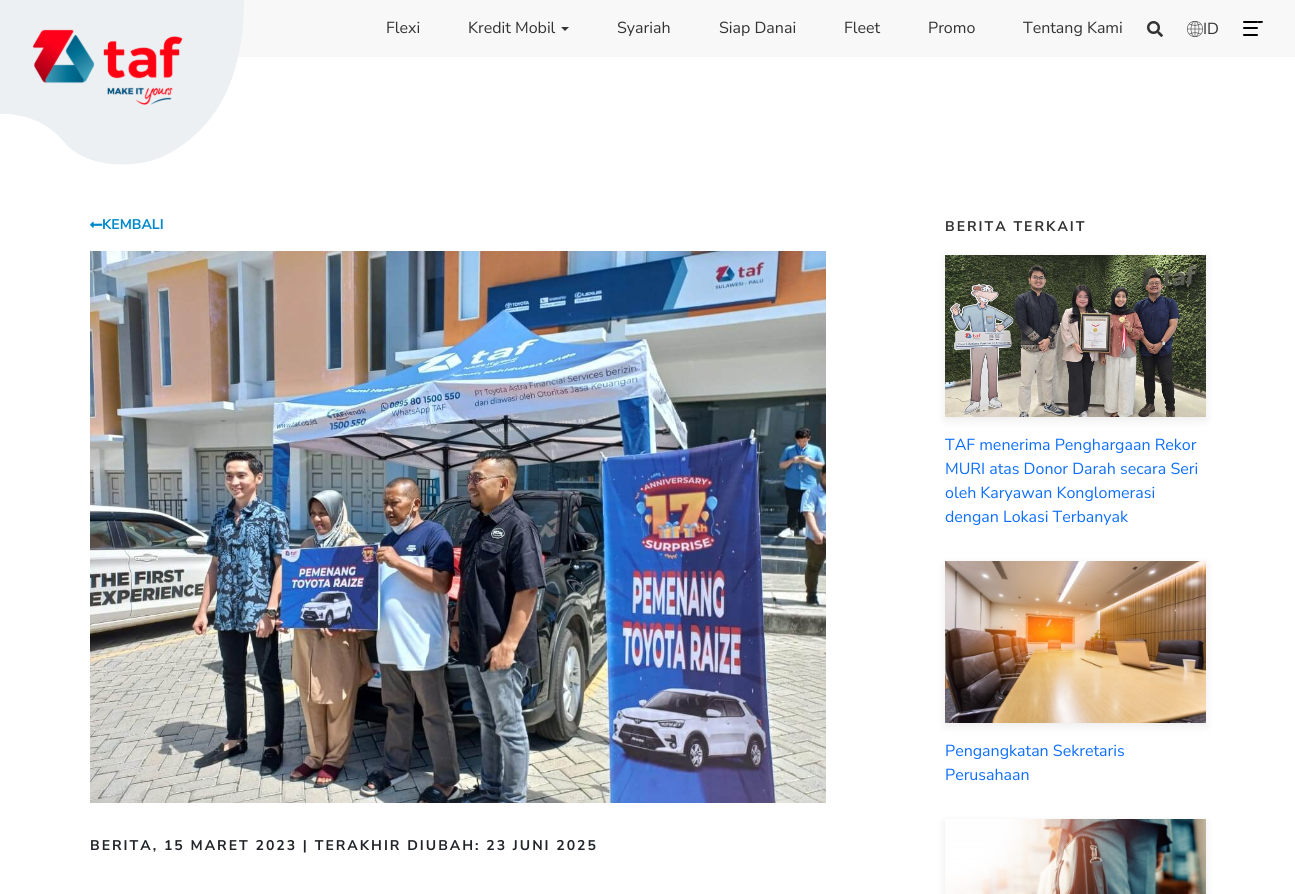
#include <cairo.h>
#include <math.h>
#include <stddef.h>


static void rgb(cairo_t *cr, int r, int g, int b)
{
	cairo_set_source_rgb(cr, r / 255.0, g / 255.0, b / 255.0);
}

static void face(cairo_t *cr, const char *family, double size, int italic, int bold)
{
	cairo_select_font_face(cr, family, italic ? CAIRO_FONT_SLANT_ITALIC : CAIRO_FONT_SLANT_NORMAL,
		bold ? CAIRO_FONT_WEIGHT_BOLD : CAIRO_FONT_WEIGHT_NORMAL);
	cairo_set_font_size(cr, size);
}

static void label(cairo_t *cr, double x, double y, const char *s)
{
	cairo_move_to(cr, x, y);
	cairo_show_text(cr, s);
}

static void tracked(cairo_t *cr, double x, double y, const char *s, double letter, double word)
{
	cairo_move_to(cr, x, y);
	while (*s) {
		char ch[5] = {0};
		int n = 0;
		do ch[n++] = *s++; while ((*s & 0xC0) == 0x80);
		cairo_show_text(cr, ch);
		cairo_rel_move_to(cr, letter + word * (*ch == ' '), 0);
	}
}

static void rect(cairo_t *cr, double x, double y, double w, double h)
{
	cairo_rectangle(cr, x, y, w, h);
	cairo_fill(cr);
}

static void rrect(cairo_t *cr, double x, double y, double w, double h, double r)
{
	cairo_new_sub_path(cr);
	cairo_arc(cr, x + w - r, y + h - r, r, 0, M_PI / 2);
	cairo_arc(cr, x + r, y + h - r, r, M_PI / 2, M_PI);
	cairo_arc(cr, x + r, y + r, r, M_PI, 1.5 * M_PI);
	cairo_arc(cr, x + w - r, y + r, r, 1.5 * M_PI, 2 * M_PI);
	cairo_close_path(cr);
}

static void soft_shadow(cairo_t *cr, double x, double y, double w, double h, double r, double blur, double alpha)
{
	cairo_push_group_with_content(cr, CAIRO_CONTENT_ALPHA);
	cairo_set_operator(cr, CAIRO_OPERATOR_SOURCE);
	for (int i = 15; i >= -15 && fmin(w, h) + blur * i / 3 > 0; i -= 2) {
		double e = blur * i / 6;
		cairo_set_source_rgba(cr, 0, 0, 0, alpha * erfc((i - 1) / 8.5) / 2);
		rrect(cr, x - e, y - e, w + 2 * e, h + 2 * e, fmax(0, fmin(r + e + blur * .6, fmin(w, h) / 2 + e)));
		cairo_fill(cr);
	}
	cairo_pattern_t *soft = cairo_pop_group(cr);
	cairo_mask(cr, soft);
	cairo_pattern_destroy(soft);
}

static void image(cairo_t *cr, const char *path, double x, double y, double w, double h)
{
	cairo_surface_t *image = cairo_image_surface_create_from_png(path);
	cairo_save(cr);
	cairo_set_source_surface(cr, image, x, y);
	cairo_rectangle(cr, x, y, w, h);
	cairo_fill(cr);
	cairo_restore(cr);
	cairo_surface_destroy(image);
}

static void draw(cairo_t *cr) {
	rgb(cr, 255, 255, 255);
	cairo_paint(cr);
	rgb(cr, 248, 248, 248);
	rect(cr, 238, 0, 1057, 57);
	rgb(cr, 237, 240, 243);
	cairo_new_path(cr);
	cairo_move_to(cr, 0, 114);
	cairo_curve_to(cr, 0, 114, 38, 111, 63, 141);
	cairo_curve_to(cr, 88, 172, 144, 168, 168, 154);
	cairo_curve_to(cr, 193, 140, 244, 106, 244, 0);
	cairo_line_to(cr, 0, 0);
	cairo_close_path(cr);
	cairo_fill(cr);
	image(cr, "image0.png", 32, 29, 151, 76);
	face(cr, "Nunito Sans", 16, 0, 0);
	rgb(cr, 51, 51, 51);
	label(cr, 386, 33, "Flexi");
	label(cr, 468, 33, "Kredit Mobil");
	cairo_new_path(cr);
	cairo_move_to(cr, 561, 27);
	cairo_line_to(cr, 569, 27);
	cairo_line_to(cr, 565, 31);
	cairo_close_path(cr);
	cairo_fill(cr);
	label(cr, 617, 33, "Syariah");
	label(cr, 719, 33, "Siap Danai");
	label(cr, 844, 33, "Fleet");
	label(cr, 928, 33, "Promo");
	label(cr, 1023, 33, "Tentang Kami");
	image(cr, "image1.png", 1147, 21, 16, 16);
	image(cr, "image2.png", 1187, 21, 16, 16);
	label(cr, 1203, 34, "ID");
	rgb(cr, 0, 0, 0);
	rrect(cr, 1243, 34, 15, 2, 1);
	cairo_fill(cr);
	cairo_new_path(cr);
	cairo_move_to(cr, 1257, 23);
	cairo_curve_to(cr, 1258, 23, 1263, 23.5, 1263, 22);
	cairo_curve_to(cr, 1263, 21.5, 1262.5, 21, 1262, 21);
	cairo_line_to(cr, 1257, 21);
	cairo_curve_to(cr, 1258.5, 21, 1258.5, 23, 1257, 23);
	cairo_close_path(cr);
	cairo_fill(cr);
	rrect(cr, 1243, 27, 15, 2, 1);
	cairo_fill(cr);
	rrect(cr, 1243, 21, 15, 2, 1);
	cairo_fill(cr);
	face(cr, "Nunito Sans", 14, 0, 1);
	rgb(cr, 0, 137, 202);
	label(cr, 102, 229, "KEMBALI");
	image(cr, "image3.png", 90, 221, 13, 7);
	image(cr, "image4.png", 90, 251, 736, 552);
	rgb(cr, 33, 37, 41);
	tracked(cr, 90, 850, "BERITA, 15 MARET 2023 | TERAKHIR DIUBAH: 23 JUNI 2025", 2, 0);
	rgb(cr, 51, 51, 51);
	tracked(cr, 945, 231, "BERITA TERKAIT", 2, 0);
	rgb(cr, 0, 0, 0);
	soft_shadow(cr, 945, 258, 261, 162, 0, 5, 0.08);
	image(cr, "image5.png", 945, 255, 261, 162);
	face(cr, "Nunito Sans", 16, 0, 0);
	rgb(cr, 13, 110, 253);
	label(cr, 945, 450, "TAF menerima Penghargaan Rekor");
	label(cr, 945, 474, "MURI atas Donor Darah secara Seri");
	label(cr, 945, 498, "oleh Karyawan Konglomerasi");
	label(cr, 945, 522, "dengan Lokasi Terbanyak");
	rgb(cr, 0, 0, 0);
	soft_shadow(cr, 945, 564, 261, 162, 0, 5, 0.08);
	image(cr, "image6.png", 945, 561, 261, 162);
	rgb(cr, 13, 110, 253);
	label(cr, 945, 756, "Pengangkatan Sekretaris");
	label(cr, 945, 780, "Perusahaan");
	rgb(cr, 0, 0, 0);
	soft_shadow(cr, 945, 822, 261, 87, 0, 5, 0.08);
	image(cr, "image7.png", 945, 819, 261, 75);
}

int main(void) {
	cairo_surface_t *surface = cairo_image_surface_create(CAIRO_FORMAT_RGB24, 1295, 894);
	cairo_t *cr = cairo_create(surface);
	cairo_font_options_t *options = cairo_font_options_create();
	cairo_font_options_set_hint_metrics(options, CAIRO_HINT_METRICS_OFF);
	cairo_font_options_set_hint_style(options, CAIRO_HINT_STYLE_NONE);
	cairo_set_font_options(cr, options);
	cairo_set_miter_limit(cr, 4);
	draw(cr);
	cairo_surface_write_to_png(surface, "render.png");
	cairo_font_options_destroy(options);
	cairo_destroy(cr);
	cairo_surface_destroy(surface);
	return 0;
}
